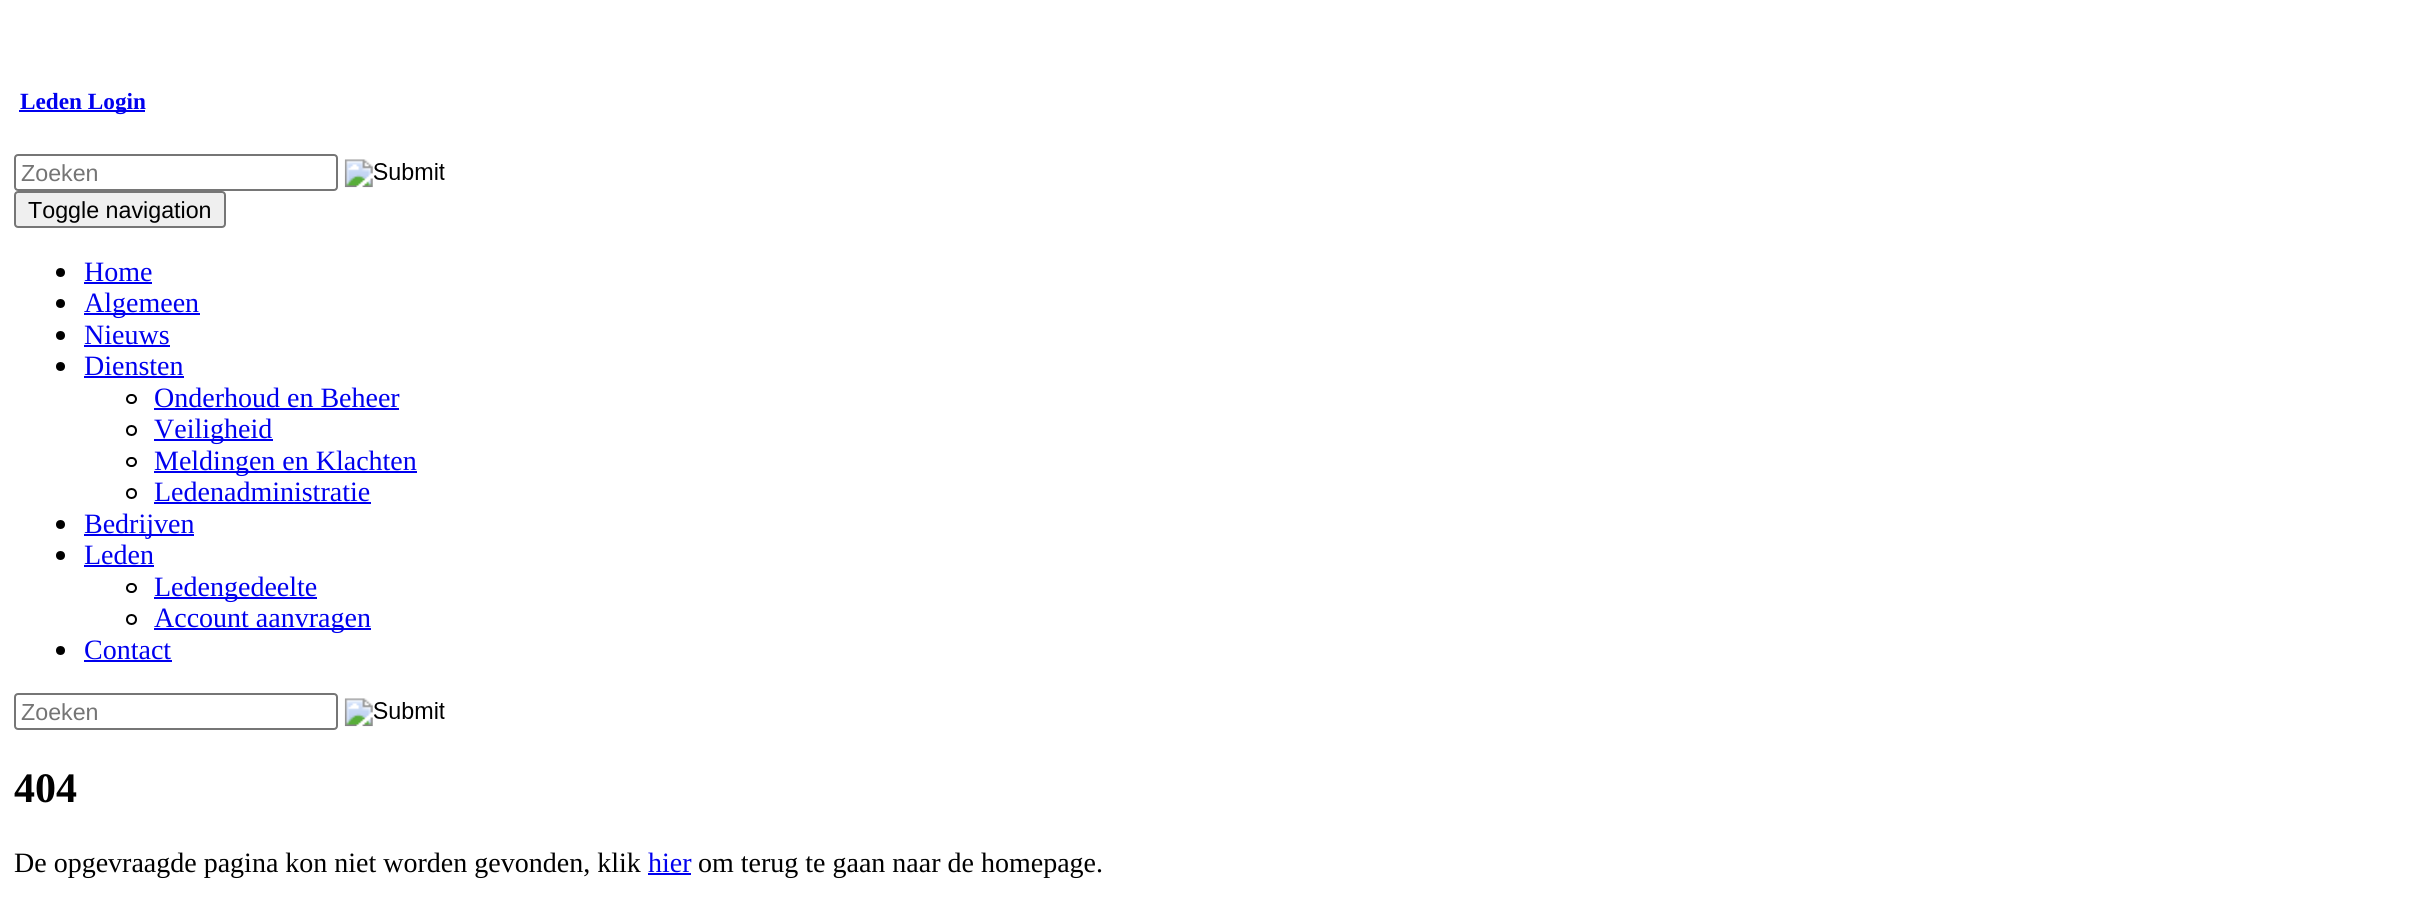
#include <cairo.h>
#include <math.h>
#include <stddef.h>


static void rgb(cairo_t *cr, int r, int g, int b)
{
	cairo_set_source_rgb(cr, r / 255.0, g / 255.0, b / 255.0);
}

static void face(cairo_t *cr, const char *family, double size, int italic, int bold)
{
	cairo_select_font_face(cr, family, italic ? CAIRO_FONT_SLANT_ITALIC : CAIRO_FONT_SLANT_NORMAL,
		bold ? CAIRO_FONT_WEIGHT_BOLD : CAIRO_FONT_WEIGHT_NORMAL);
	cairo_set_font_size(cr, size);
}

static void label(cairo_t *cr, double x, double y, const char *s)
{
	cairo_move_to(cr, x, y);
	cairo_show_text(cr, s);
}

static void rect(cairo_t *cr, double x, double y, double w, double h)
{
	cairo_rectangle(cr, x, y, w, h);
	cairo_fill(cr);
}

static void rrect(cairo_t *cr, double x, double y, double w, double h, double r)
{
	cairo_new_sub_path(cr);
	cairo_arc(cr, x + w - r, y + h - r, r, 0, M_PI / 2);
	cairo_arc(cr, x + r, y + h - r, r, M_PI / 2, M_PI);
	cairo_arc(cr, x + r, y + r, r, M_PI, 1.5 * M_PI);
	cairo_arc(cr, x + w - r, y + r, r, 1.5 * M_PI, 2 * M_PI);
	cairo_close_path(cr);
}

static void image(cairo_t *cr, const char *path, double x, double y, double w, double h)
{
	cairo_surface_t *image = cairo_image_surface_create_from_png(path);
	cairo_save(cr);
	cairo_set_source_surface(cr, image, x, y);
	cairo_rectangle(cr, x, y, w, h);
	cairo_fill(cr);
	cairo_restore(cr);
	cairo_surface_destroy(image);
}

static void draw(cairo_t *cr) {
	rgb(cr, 255, 255, 255);
	cairo_paint(cr);
	rgb(cr, 0, 0, 238);
	rect(cr, 19, 110, 126, 2);
	face(cr, "Liberation Serif", 23.25, 0, 1);
	label(cr, 20, 109, "Leden Login");
	rrect(cr, 15, 155, 322, 35, 3);
	rgb(cr, 118, 118, 118);
	cairo_stroke(cr);
	face(cr, "Liberation Sans", 23.25, 0, 0);
	rgb(cr, 117, 117, 117);
	label(cr, 21, 181, "Zoeken");
	image(cr, "image0.png", 344, 159, 101, 29);
	rgb(cr, 239, 239, 239);
	rrect(cr, 15, 192, 210, 35, 3);
	cairo_fill_preserve(cr);
	rgb(cr, 118, 118, 118);
	cairo_stroke(cr);
	rgb(cr, 0, 0, 0);
	label(cr, 28, 218, "Toggle navigation");
	cairo_new_path(cr);
	cairo_arc(cr, 60.5, 272.5, 4.5, 0, 2 * M_PI);
	cairo_fill(cr);
	face(cr, "Liberation Serif", 28, 0, 0);
	rgb(cr, 0, 0, 238);
	label(cr, 84, 281, "Home");
	rect(cr, 84, 282, 68, 2);
	rgb(cr, 0, 0, 0);
	cairo_new_path(cr);
	cairo_arc(cr, 60.5, 303.5, 4.5, 0, 2 * M_PI);
	cairo_fill(cr);
	rgb(cr, 0, 0, 238);
	rect(cr, 84, 313, 116, 2);
	label(cr, 84, 312, "Algemeen");
	rgb(cr, 0, 0, 0);
	cairo_new_path(cr);
	cairo_arc(cr, 60.5, 335.5, 4.5, 0, 2 * M_PI);
	cairo_fill(cr);
	rgb(cr, 0, 0, 238);
	label(cr, 84, 344, "Nieuws");
	rect(cr, 84, 345, 86, 2);
	rgb(cr, 0, 0, 0);
	cairo_new_path(cr);
	cairo_arc(cr, 60.5, 366.5, 4.5, 0, 2 * M_PI);
	cairo_fill(cr);
	rgb(cr, 0, 0, 238);
	label(cr, 84, 375, "Diensten");
	rect(cr, 84, 376, 100, 2);
	rrect(cr, 127, 395, 9, 8, 4);
	rgb(cr, 0, 0, 0);
	cairo_stroke(cr);
	rgb(cr, 0, 0, 238);
	label(cr, 154, 407, "Onderhoud en Beheer");
	rect(cr, 154, 408, 245, 2);
	cairo_new_path(cr);
	cairo_arc(cr, 131.5, 430.5, 4.5, 0, 2 * M_PI);
	rgb(cr, 0, 0, 0);
	cairo_stroke(cr);
	rgb(cr, 0, 0, 238);
	rect(cr, 154, 439, 119, 2);
	label(cr, 154, 438, "Veiligheid");
	rrect(cr, 127, 458, 9, 8, 4);
	rgb(cr, 0, 0, 0);
	cairo_stroke(cr);
	rgb(cr, 0, 0, 238);
	rect(cr, 154, 471, 263, 2);
	label(cr, 154, 470, "Meldingen en Klachten");
	cairo_new_path(cr);
	cairo_arc(cr, 131.5, 493.5, 4.5, 0, 2 * M_PI);
	rgb(cr, 0, 0, 0);
	cairo_stroke(cr);
	rgb(cr, 0, 0, 238);
	label(cr, 154, 501, "Ledenadministratie");
	rect(cr, 154, 502, 217, 2);
	rgb(cr, 0, 0, 0);
	cairo_new_path(cr);
	cairo_arc(cr, 60.5, 524.5, 4.5, 0, 2 * M_PI);
	cairo_fill(cr);
	rgb(cr, 0, 0, 238);
	rect(cr, 84, 534, 110, 2);
	label(cr, 84, 533, "Bedrijven");
	rgb(cr, 0, 0, 0);
	cairo_new_path(cr);
	cairo_arc(cr, 60.5, 555.5, 4.5, 0, 2 * M_PI);
	cairo_fill(cr);
	rgb(cr, 0, 0, 238);
	label(cr, 84, 564, "Leden");
	rect(cr, 84, 565, 70, 2);
	rrect(cr, 127, 584, 9, 8, 4);
	rgb(cr, 0, 0, 0);
	cairo_stroke(cr);
	rgb(cr, 0, 0, 238);
	rect(cr, 154, 597, 163, 2);
	label(cr, 154, 596, "Ledengedeelte");
	cairo_new_path(cr);
	cairo_arc(cr, 131.5, 619.5, 4.5, 0, 2 * M_PI);
	rgb(cr, 0, 0, 0);
	cairo_stroke(cr);
	rgb(cr, 0, 0, 238);
	rect(cr, 154, 628, 217, 2);
	label(cr, 154, 627, "Account aanvragen");
	rgb(cr, 0, 0, 0);
	cairo_new_path(cr);
	cairo_arc(cr, 60.5, 650.5, 4.5, 0, 2 * M_PI);
	cairo_fill(cr);
	rgb(cr, 0, 0, 238);
	label(cr, 84, 659, "Contact");
	rect(cr, 84, 660, 88, 2);
	rrect(cr, 15, 694, 322, 35, 3);
	rgb(cr, 118, 118, 118);
	cairo_stroke(cr);
	face(cr, "Liberation Sans", 23.25, 0, 0);
	rgb(cr, 117, 117, 117);
	label(cr, 21, 720, "Zoeken");
	image(cr, "image0.png", 344, 698, 101, 29);
	face(cr, "Liberation Serif", 42, 0, 1);
	rgb(cr, 0, 0, 0);
	label(cr, 14, 802, "404");
	face(cr, "Liberation Serif", 28, 0, 0);
	label(cr, 14, 872, "De opgevraagde pagina kon niet worden gevonden, klik");
	rgb(cr, 0, 0, 238);
	label(cr, 648, 872, "hier");
	rect(cr, 648, 873, 43, 2);
	rgb(cr, 0, 0, 0);
	label(cr, 698, 872, "om terug te gaan naar de homepage.");
}

int main(void) {
	cairo_surface_t *surface = cairo_image_surface_create(CAIRO_FORMAT_RGB24, 2434, 910);
	cairo_t *cr = cairo_create(surface);
	cairo_font_options_t *options = cairo_font_options_create();
	cairo_font_options_set_hint_metrics(options, CAIRO_HINT_METRICS_OFF);
	cairo_font_options_set_hint_style(options, CAIRO_HINT_STYLE_NONE);
	cairo_set_font_options(cr, options);
	cairo_set_miter_limit(cr, 4);
	draw(cr);
	cairo_surface_write_to_png(surface, "render.png");
	cairo_font_options_destroy(options);
	cairo_destroy(cr);
	cairo_surface_destroy(surface);
	return 0;
}
